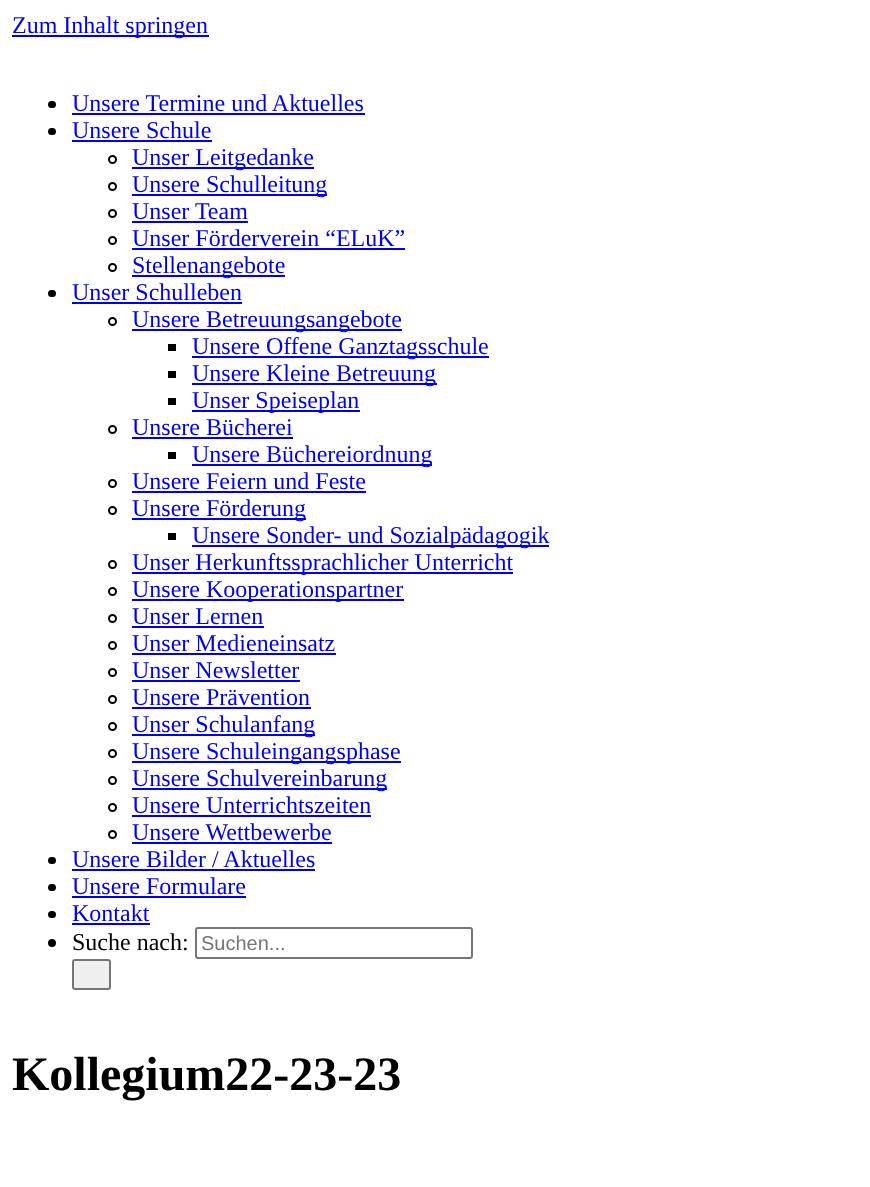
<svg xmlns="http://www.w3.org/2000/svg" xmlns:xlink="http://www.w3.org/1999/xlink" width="870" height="1187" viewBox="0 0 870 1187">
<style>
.cls-1{font:24px Liberation Serif;fill:#0000ee}
.cls-2{font:24px Liberation Serif;fill:#000000}
.cls-3{font:20px Liberation Sans;fill:#757575}
.cls-4{font:bold 48px Liberation Serif;fill:#000000}
</style>
<rect width="100%" height="100%" fill="#ffffff"/>
<rect fill="#0000ee" x="12" y="35" width="197" height="2"/>
<rect fill="#000000" x="48" y="101" width="8" height="7" rx="3.5"/>
<rect fill="#0000ee" x="72" y="113" width="293" height="2"/>
<rect fill="#000000" x="48" y="128" width="8" height="7" rx="3.5"/>
<rect fill="#0000ee" x="72" y="140" width="140" height="2"/>
<circle fill="none" stroke="#000000" stroke-width="2" cx="112.5" cy="159.5" r="3.5"/>
<rect fill="#0000ee" x="132" y="167" width="182" height="2"/>
<circle fill="none" stroke="#000000" stroke-width="2" cx="112.5" cy="186.5" r="3.5"/>
<rect fill="#0000ee" x="132" y="194" width="195" height="2"/>
<circle fill="none" stroke="#000000" stroke-width="2" cx="112.5" cy="213.5" r="3.5"/>
<rect fill="#0000ee" x="132" y="221" width="116" height="2"/>
<circle fill="none" stroke="#000000" stroke-width="2" cx="112.5" cy="240.5" r="3.5"/>
<rect fill="#0000ee" x="132" y="248" width="273" height="2"/>
<circle fill="none" stroke="#000000" stroke-width="2" cx="112.5" cy="267.5" r="3.5"/>
<rect fill="#0000ee" x="132" y="275" width="153" height="2"/>
<rect fill="#000000" x="48" y="290" width="8" height="7" rx="3.5"/>
<rect fill="#0000ee" x="72" y="302" width="170" height="2"/>
<circle fill="none" stroke="#000000" stroke-width="2" cx="112.5" cy="321.5" r="3.5"/>
<rect fill="#0000ee" x="132" y="329" width="270" height="2"/>
<rect fill="#000000" x="168" y="344" width="8" height="7"/>
<rect fill="#0000ee" x="192" y="356" width="297" height="2"/>
<rect fill="#000000" x="168" y="371" width="8" height="7"/>
<rect fill="#0000ee" x="192" y="383" width="245" height="2"/>
<rect fill="#000000" x="168" y="398" width="8" height="7"/>
<rect fill="#0000ee" x="192" y="410" width="168" height="2"/>
<circle fill="none" stroke="#000000" stroke-width="2" cx="112.5" cy="429.5" r="3.5"/>
<rect fill="#0000ee" x="132" y="437" width="161" height="2"/>
<rect fill="#000000" x="168" y="452" width="8" height="7"/>
<rect fill="#0000ee" x="192" y="464" width="240" height="2"/>
<circle fill="none" stroke="#000000" stroke-width="2" cx="112.5" cy="483.5" r="3.5"/>
<rect fill="#0000ee" x="132" y="491" width="234" height="2"/>
<circle fill="none" stroke="#000000" stroke-width="2" cx="112.5" cy="510.5" r="3.5"/>
<rect fill="#0000ee" x="132" y="518" width="174" height="2"/>
<rect fill="#000000" x="168" y="533" width="8" height="7"/>
<rect fill="#0000ee" x="192" y="545" width="357" height="2"/>
<circle fill="none" stroke="#000000" stroke-width="2" cx="112.5" cy="564.5" r="3.5"/>
<rect fill="#0000ee" x="132" y="572" width="381" height="2"/>
<circle fill="none" stroke="#000000" stroke-width="2" cx="112.5" cy="591.5" r="3.5"/>
<rect fill="#0000ee" x="132" y="599" width="272" height="2"/>
<circle fill="none" stroke="#000000" stroke-width="2" cx="112.5" cy="618.5" r="3.5"/>
<rect fill="#0000ee" x="132" y="626" width="132" height="2"/>
<circle fill="none" stroke="#000000" stroke-width="2" cx="112.5" cy="645.5" r="3.5"/>
<rect fill="#0000ee" x="132" y="653" width="204" height="2"/>
<circle fill="none" stroke="#000000" stroke-width="2" cx="112.5" cy="672.5" r="3.5"/>
<rect fill="#0000ee" x="132" y="680" width="168" height="2"/>
<circle fill="none" stroke="#000000" stroke-width="2" cx="112.5" cy="699.5" r="3.5"/>
<rect fill="#0000ee" x="132" y="707" width="179" height="2"/>
<circle fill="none" stroke="#000000" stroke-width="2" cx="112.5" cy="726.5" r="3.5"/>
<rect fill="#0000ee" x="132" y="734" width="183" height="2"/>
<circle fill="none" stroke="#000000" stroke-width="2" cx="112.5" cy="753.5" r="3.5"/>
<rect fill="#0000ee" x="132" y="761" width="269" height="2"/>
<circle fill="none" stroke="#000000" stroke-width="2" cx="112.5" cy="780.5" r="3.5"/>
<rect fill="#0000ee" x="132" y="788" width="255" height="2"/>
<circle fill="none" stroke="#000000" stroke-width="2" cx="112.5" cy="807.5" r="3.5"/>
<rect fill="#0000ee" x="132" y="815" width="239" height="2"/>
<circle fill="none" stroke="#000000" stroke-width="2" cx="112.5" cy="834.5" r="3.5"/>
<rect fill="#0000ee" x="132" y="842" width="200" height="2"/>
<rect fill="#000000" x="48" y="857" width="8" height="7" rx="3.5"/>
<rect fill="#0000ee" x="72" y="869" width="243" height="2"/>
<rect fill="#000000" x="48" y="884" width="8" height="7" rx="3.5"/>
<rect fill="#0000ee" x="72" y="896" width="174" height="2"/>
<rect fill="#000000" x="48" y="911" width="8" height="7" rx="3.5"/>
<rect fill="#0000ee" x="72" y="923" width="78" height="2"/>
<circle fill="#000000" cx="52" cy="943" r="4"/>
<rect fill="none" stroke="#767676" stroke-width="2" x="196" y="928" width="276" height="30" rx="2"/>
<rect fill="#efefef" stroke="#767676" stroke-width="2" x="73" y="960" width="37" height="29" rx="2"/>
<text class="cls-1" x="12" y="33">Zum Inhalt springen</text>
<text class="cls-1"><tspan x="72" y="111">Unsere Termine und Aktuelles</tspan><tspan x="72" y="138">Unsere Schule</tspan></text>
<text class="cls-1"><tspan x="132" y="165">Unser Leitgedanke</tspan><tspan x="132" y="192">Unsere Schulleitung</tspan><tspan x="132" y="219">Unser Team</tspan><tspan x="132" y="246">Unser Förderverein “ELuK”</tspan><tspan x="132" y="273">Stellenangebote</tspan></text>
<text class="cls-1" x="72" y="300">Unser Schulleben</text>
<text class="cls-1" x="132" y="327">Unsere Betreuungsangebote</text>
<text class="cls-1"><tspan x="192" y="354">Unsere Offene Ganztagsschule</tspan><tspan x="192" y="381">Unsere Kleine Betreuung</tspan><tspan x="192" y="408">Unser Speiseplan</tspan></text>
<text class="cls-1" x="132" y="435">Unsere Bücherei</text>
<text class="cls-1" x="192" y="462">Unsere Büchereiordnung</text>
<text class="cls-1"><tspan x="132" y="489">Unsere Feiern und Feste</tspan><tspan x="132" y="516">Unsere Förderung</tspan></text>
<text class="cls-1" x="192" y="543">Unsere Sonder- und Sozialpädagogik</text>
<text class="cls-1"><tspan x="132" y="570">Unser Herkunftssprachlicher Unterricht</tspan><tspan x="132" y="597">Unsere Kooperationspartner</tspan><tspan x="132" y="624">Unser Lernen</tspan><tspan x="132" y="651">Unser Medieneinsatz</tspan><tspan x="132" y="678">Unser Newsletter</tspan><tspan x="132" y="705">Unsere Prävention</tspan><tspan x="132" y="732">Unser Schulanfang</tspan><tspan x="132" y="759">Unsere Schuleingangsphase</tspan><tspan x="132" y="786">Unsere Schulvereinbarung</tspan><tspan x="132" y="813">Unsere Unterrichtszeiten</tspan><tspan x="132" y="840">Unsere Wettbewerbe</tspan></text>
<text class="cls-1"><tspan x="72" y="867">Unsere Bilder / Aktuelles</tspan><tspan x="72" y="894">Unsere Formulare</tspan><tspan x="72" y="921">Kontakt</tspan></text>
<text class="cls-2" x="72" y="950">Suche nach:</text>
<text class="cls-3" x="201" y="950">Suchen...</text>
<text class="cls-4" x="12" y="1090">Kollegium22-23-23</text>
</svg>
